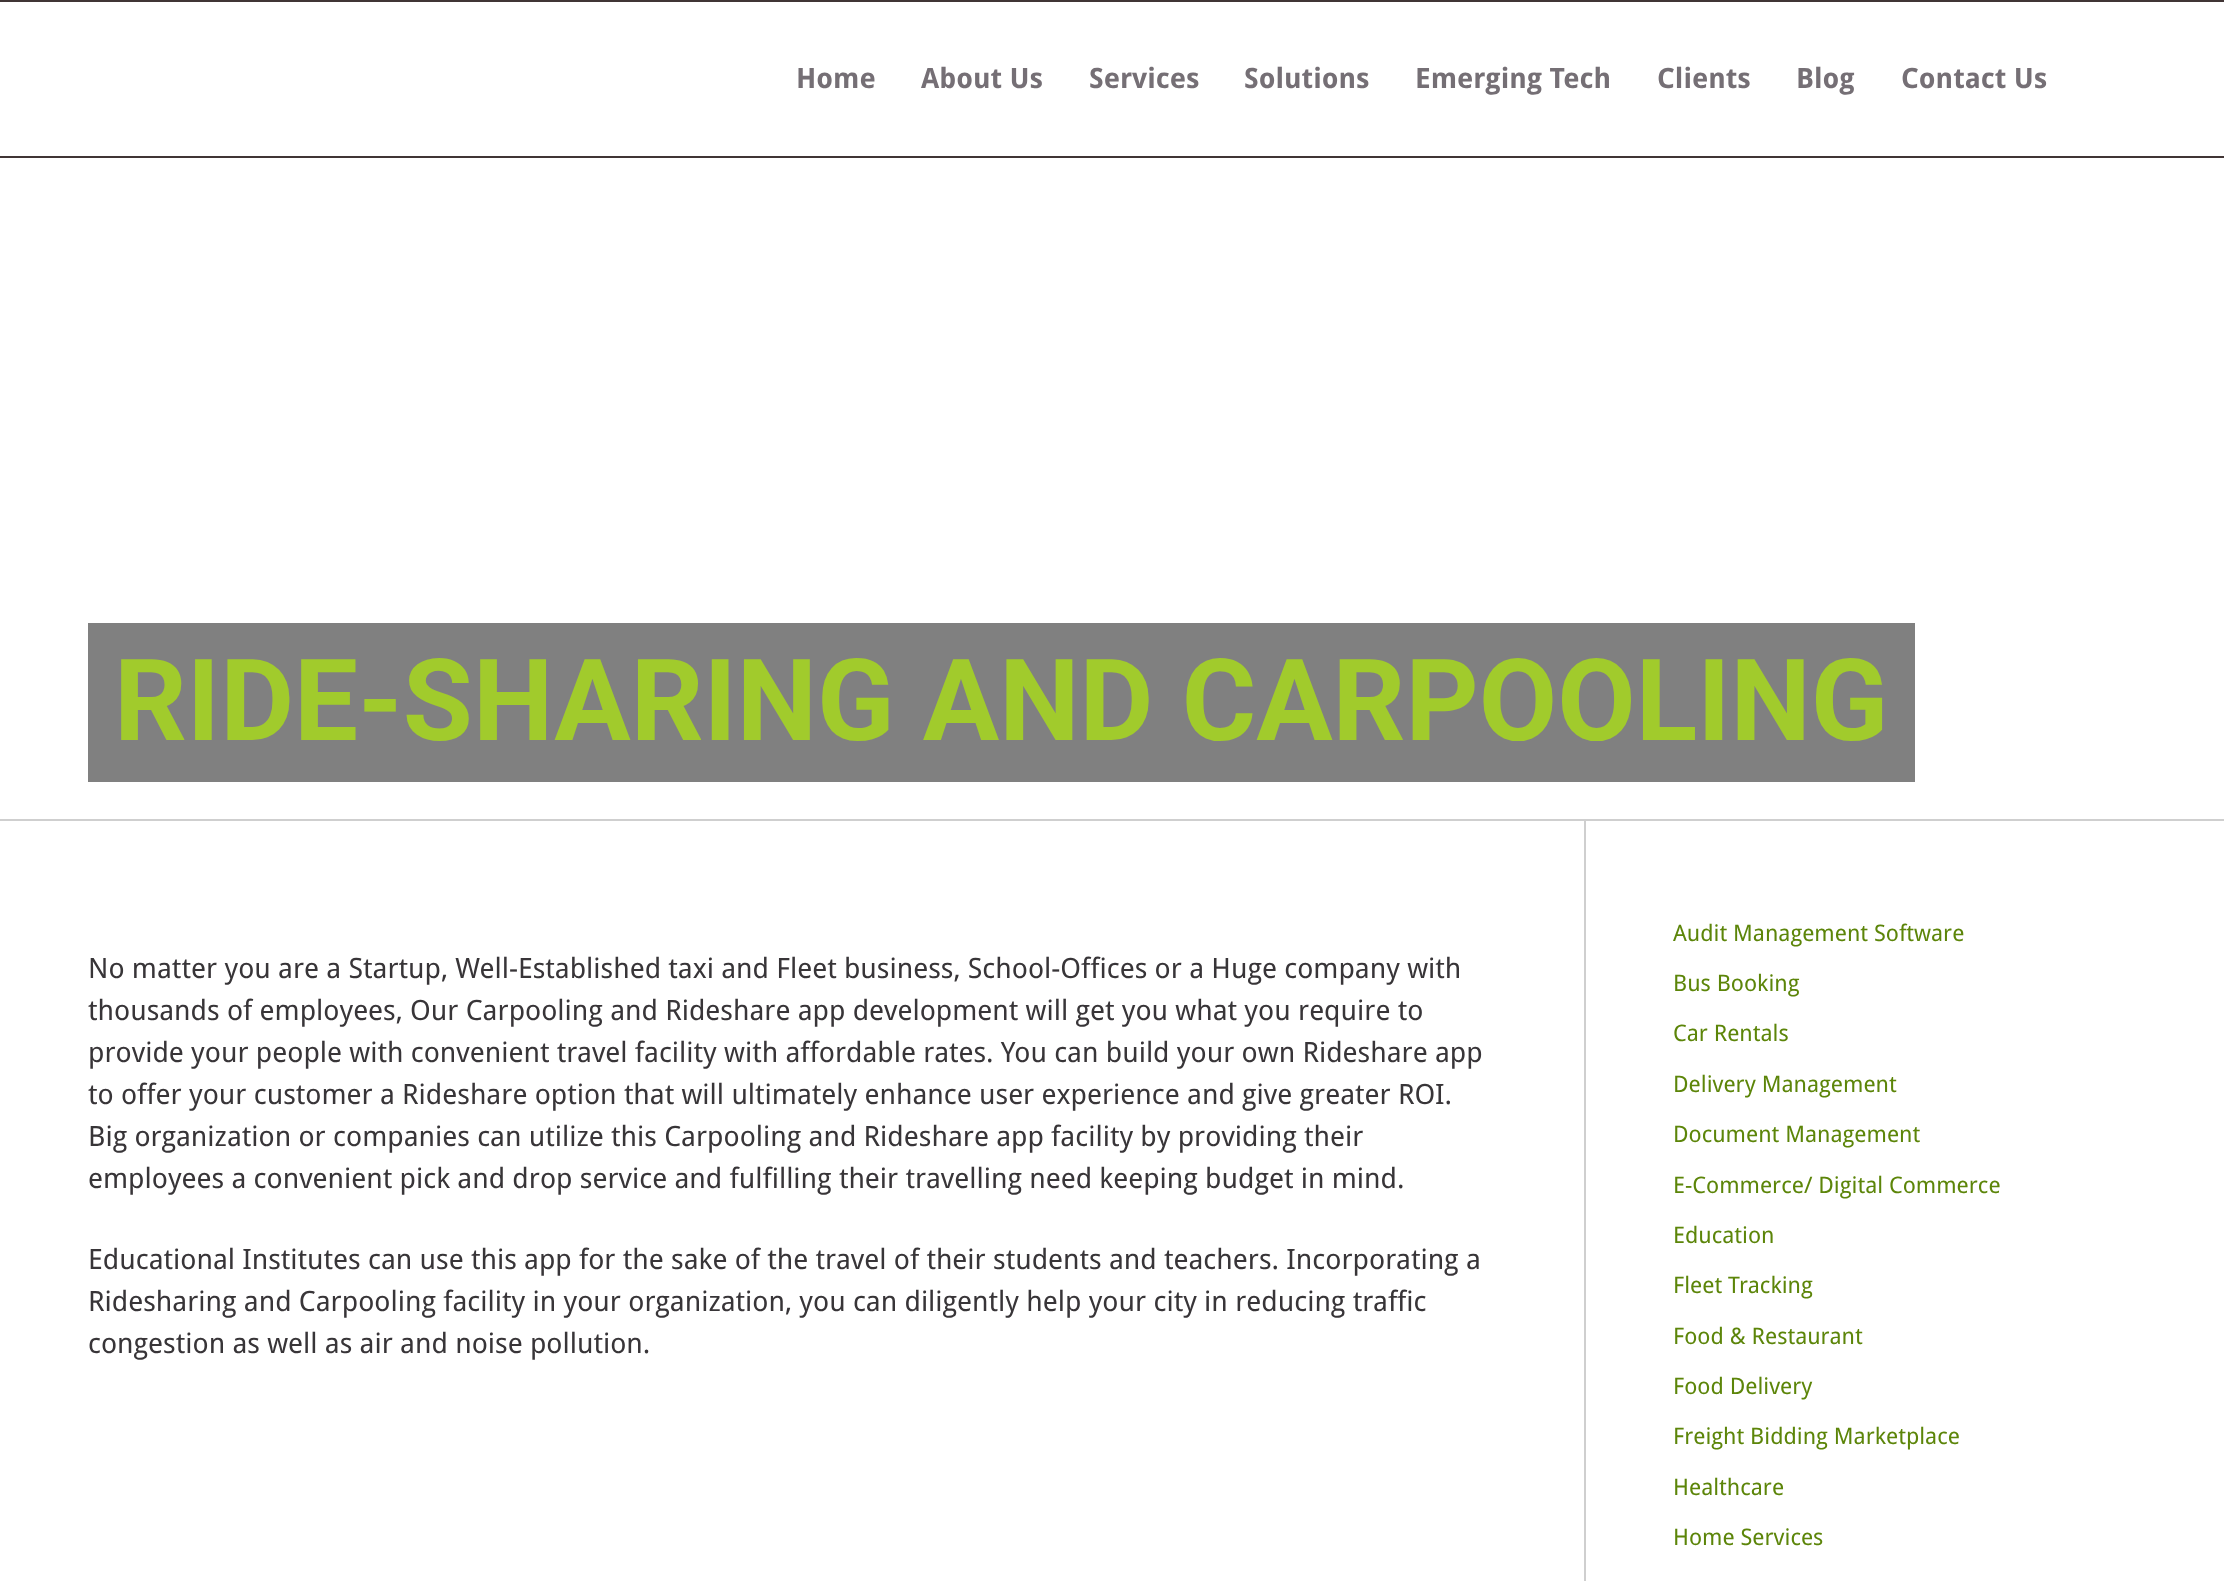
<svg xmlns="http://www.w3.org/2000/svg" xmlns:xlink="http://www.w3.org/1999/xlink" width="2224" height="1581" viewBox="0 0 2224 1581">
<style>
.cls-1{font:bold 28px Droid Sans;fill:#756f75}
.cls-2{font:bold 113.75px Roboto;fill:#a1cb2c}
.cls-3{font:28px Droid Sans;fill:#383538}
.cls-4{font:22.75px Droid Sans;fill:#5c8509}
</style>
<rect width="100%" height="100%" fill="#ffffff"/>
<rect fill="#403535" x="0" y="0" width="2224" height="2"/>
<rect fill="#403535" x="0" y="156" width="2224" height="2"/>
<rect fill="#808080" x="88" y="623" width="1827" height="159"/>
<rect fill="#cfcfcf" x="0" y="819" width="2224" height="2"/>
<rect fill="#cfcfcf" x="1584" y="821" width="2" height="760"/>
<text class="cls-1" x="796" y="88">Home</text>
<text class="cls-1" x="921" y="88">About Us</text>
<text class="cls-1" x="1089" y="88">Services</text>
<text class="cls-1" x="1244" y="88">Solutions</text>
<text class="cls-1" x="1415" y="88">Emerging Tech</text>
<text class="cls-1" x="1657" y="88">Clients</text>
<text class="cls-1" x="1796" y="88">Blog</text>
<text class="cls-1" x="1901" y="88">Contact Us</text>
<text class="cls-2" x="114" y="740">RIDE-SHARING AND CARPOOLING</text>
<text class="cls-3"><tspan x="88" y="978">No matter you are a Startup, Well-Established taxi and Fleet business, School-Offices or a Huge company with</tspan><tspan x="88" y="1020">thousands of employees, Our Carpooling and Rideshare app development will get you what you require to</tspan><tspan x="88" y="1062">provide your people with convenient travel facility with affordable rates. You can build your own Rideshare app</tspan><tspan x="88" y="1104">to offer your customer a Rideshare option that will ultimately enhance user experience and give greater ROI.</tspan><tspan x="88" y="1146">Big organization or companies can utilize this Carpooling and Rideshare app facility by providing their</tspan><tspan x="88" y="1188">employees a convenient pick and drop service and fulfilling their travelling need keeping budget in mind.</tspan></text>
<text class="cls-3"><tspan x="88" y="1269">Educational Institutes can use this app for the sake of the travel of their students and teachers. Incorporating a</tspan><tspan x="88" y="1311">Ridesharing and Carpooling facility in your organization, you can diligently help your city in reducing traffic</tspan><tspan x="88" y="1353">congestion as well as air and noise pollution.</tspan></text>
<text class="cls-4" x="1673" y="941">Audit Management Software</text>
<text class="cls-4" x="1673" y="991">Bus Booking</text>
<text class="cls-4" x="1673" y="1041">Car Rentals</text>
<text class="cls-4" x="1673" y="1092">Delivery Management</text>
<text class="cls-4" x="1673" y="1142">Document Management</text>
<text class="cls-4" x="1673" y="1193">E-Commerce/ Digital Commerce</text>
<text class="cls-4" x="1673" y="1243">Education</text>
<text class="cls-4" x="1673" y="1293">Fleet Tracking</text>
<text class="cls-4" x="1673" y="1344">Food &amp; Restaurant</text>
<text class="cls-4" x="1673" y="1394">Food Delivery</text>
<text class="cls-4" x="1673" y="1444">Freight Bidding Marketplace</text>
<text class="cls-4" x="1673" y="1495">Healthcare</text>
<text class="cls-4" x="1673" y="1545">Home Services</text>
</svg>
